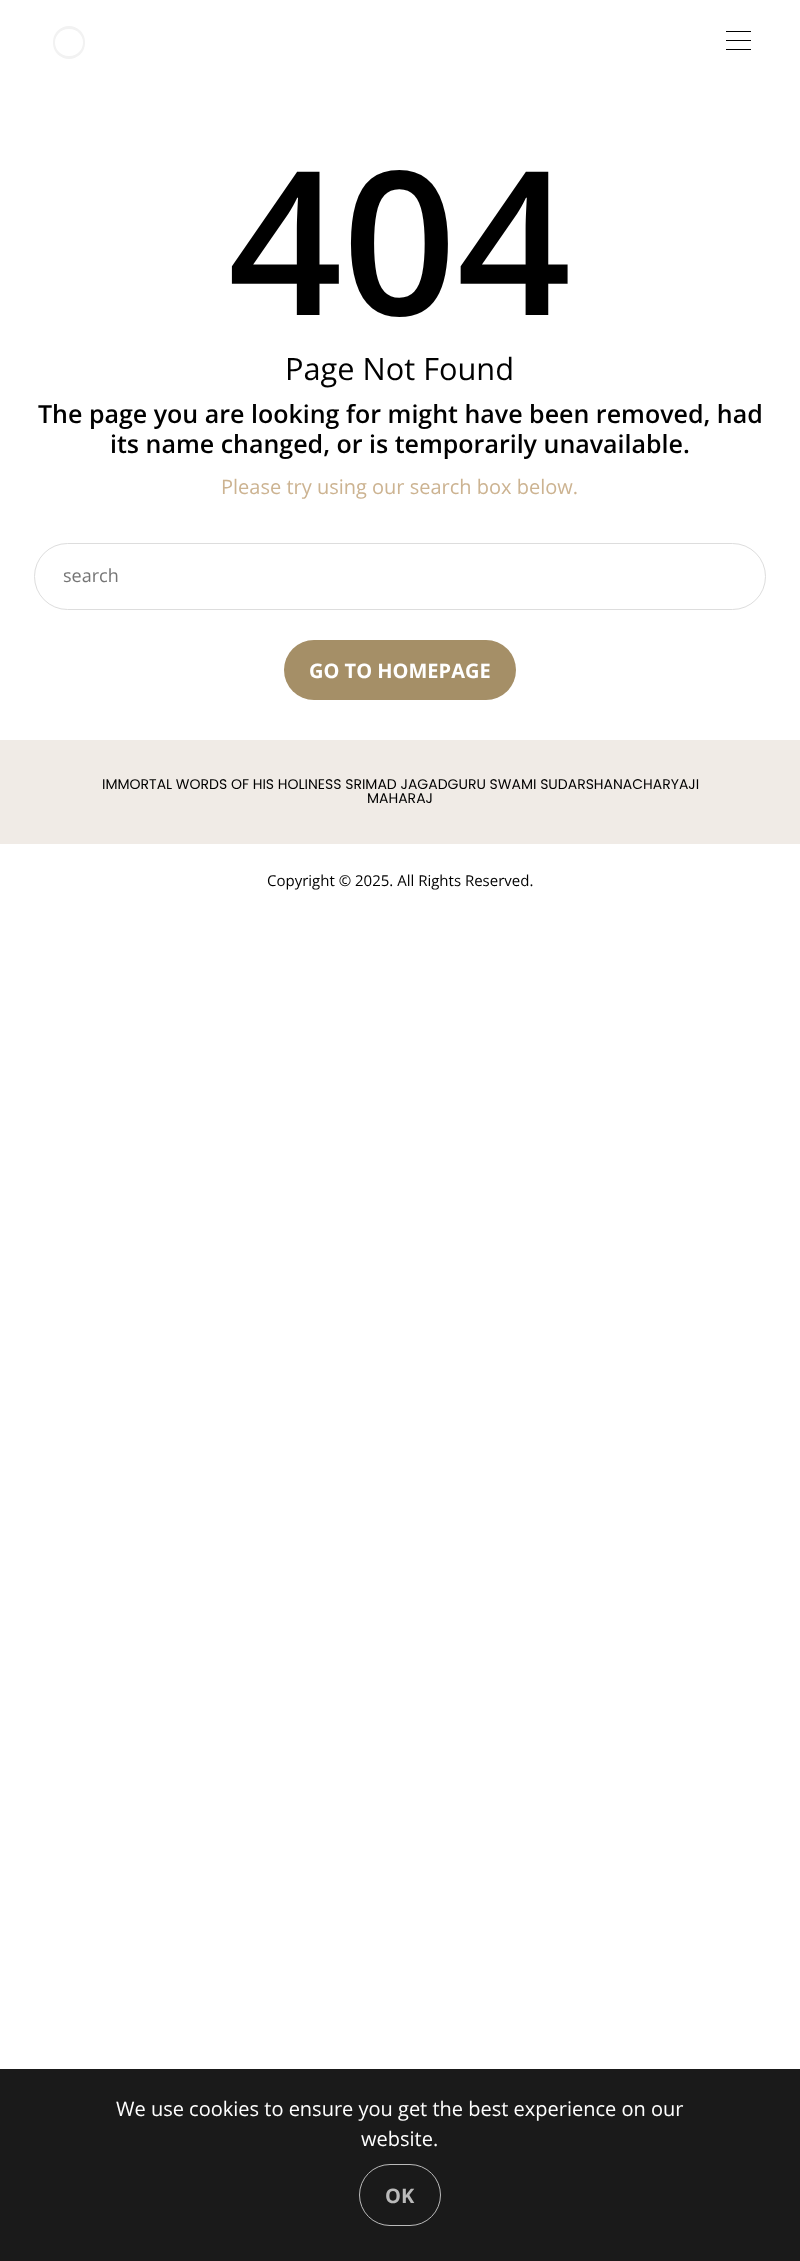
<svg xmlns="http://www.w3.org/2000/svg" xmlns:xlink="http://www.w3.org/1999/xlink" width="800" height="2261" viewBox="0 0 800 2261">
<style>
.cls-1{font:600 200px Open Sans;fill:#000000}
.cls-2{font:30.75px Open Sans;fill:#000000}
.cls-3{font:600 25px Open Sans;fill:#000000}
.cls-4{font:20px Open Sans;fill:#ccb391}
.cls-5{font:18px Open Sans;fill:#757575}
.cls-6{font:bold 20px Open Sans;fill:#ffffff}
.cls-7{font:14px Poppins;fill:#000000}
.cls-8{font:15px Open Sans;fill:#000000}
.cls-9{font:20px Open Sans;fill:#ffffff}
.cls-10{font:bold 20px Open Sans;fill:#bababa}
</style>
<rect width="100%" height="100%" fill="#ffffff"/>
<rect fill="#f2f2f2" x="53" y="26" width="32" height="33" rx="16"/>
<rect fill="#ffffff" x="55" y="29" width="28" height="27" rx="13.5"/>
<rect fill="#000000" x="726" y="40" width="25" height="1"/>
<rect fill="#000000" x="726" y="31" width="25" height="1"/>
<rect fill="#000000" x="726" y="49" width="25" height="1"/>
<rect fill="none" stroke="#dddddd" x="34.5" y="543.5" width="731" height="66" rx="33"/>
<rect fill="#a58f67" x="284" y="640" width="232" height="60" rx="30"/>
<rect fill="#f0ebe6" x="0" y="740" width="800" height="104"/>
<rect fill="#1a1a1a" x="0" y="2069" width="800" height="192"/>
<rect fill="none" stroke="#bababa" x="359.5" y="2164.5" width="81" height="61" rx="30.5"/>
<text class="cls-1" x="228" y="315">404</text>
<text class="cls-2" x="285" y="380">Page Not Found</text>
<text class="cls-3" x="38" y="423">The page you are looking for might have been removed, had</text>
<text class="cls-3" x="110" y="453">its name changed, or is temporarily unavailable.</text>
<text class="cls-4" x="221" y="494">Please try using our search box below.</text>
<text class="cls-5" x="63" y="582">search</text>
<text class="cls-6" x="309" y="678">GO TO HOMEPAGE</text>
<text class="cls-7" x="102" y="789">IMMORTAL WORDS OF HIS HOLINESS SRIMAD JAGADGURU SWAMI SUDARSHANACHARYAJI</text>
<text class="cls-7" x="367" y="803">MAHARAJ</text>
<text class="cls-8" x="267" y="886">Copyright © 2025. All Rights Reserved.</text>
<text class="cls-9" x="116" y="2116">We use cookies to ensure you get the best experience on our</text>
<text class="cls-9" x="361" y="2146">website.</text>
<text class="cls-10" x="385" y="2203">OK</text>
</svg>
